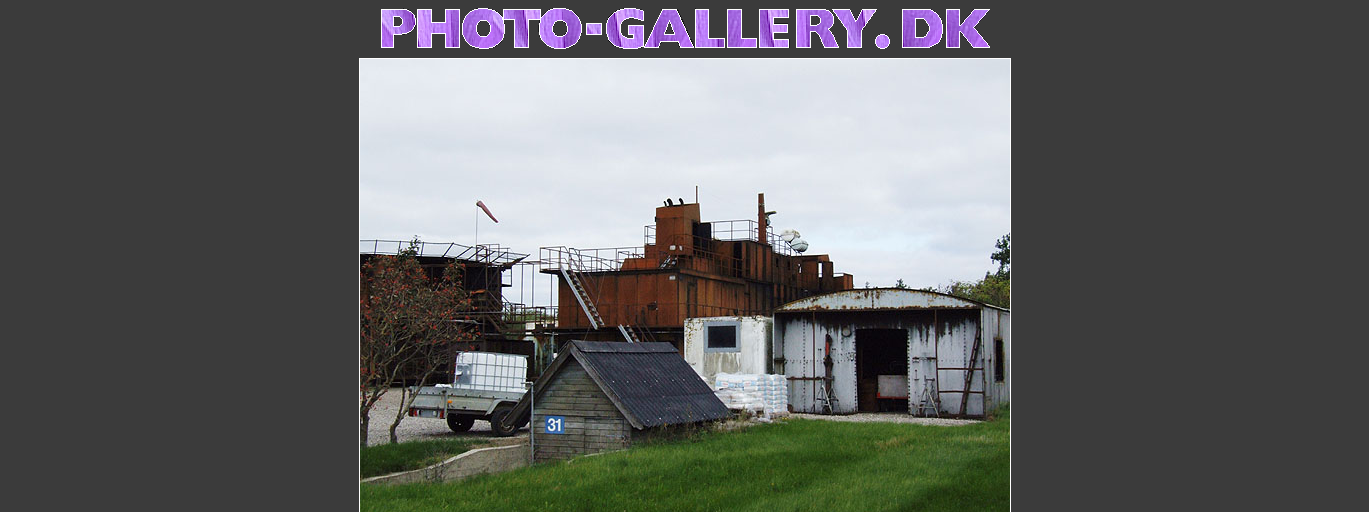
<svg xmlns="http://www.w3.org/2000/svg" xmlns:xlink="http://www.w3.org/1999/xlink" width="1369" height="512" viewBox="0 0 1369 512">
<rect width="100%" height="100%" fill="#3b3b3b"/>
<image xlink:href="image0.png" x="381" y="8" width="609" height="41"/>
<rect fill="none" stroke="#ffffff" x="359.5" y="58.5" width="651" height="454"/>
<image xlink:href="image1.png" x="360" y="59" width="650" height="453"/>
</svg>
